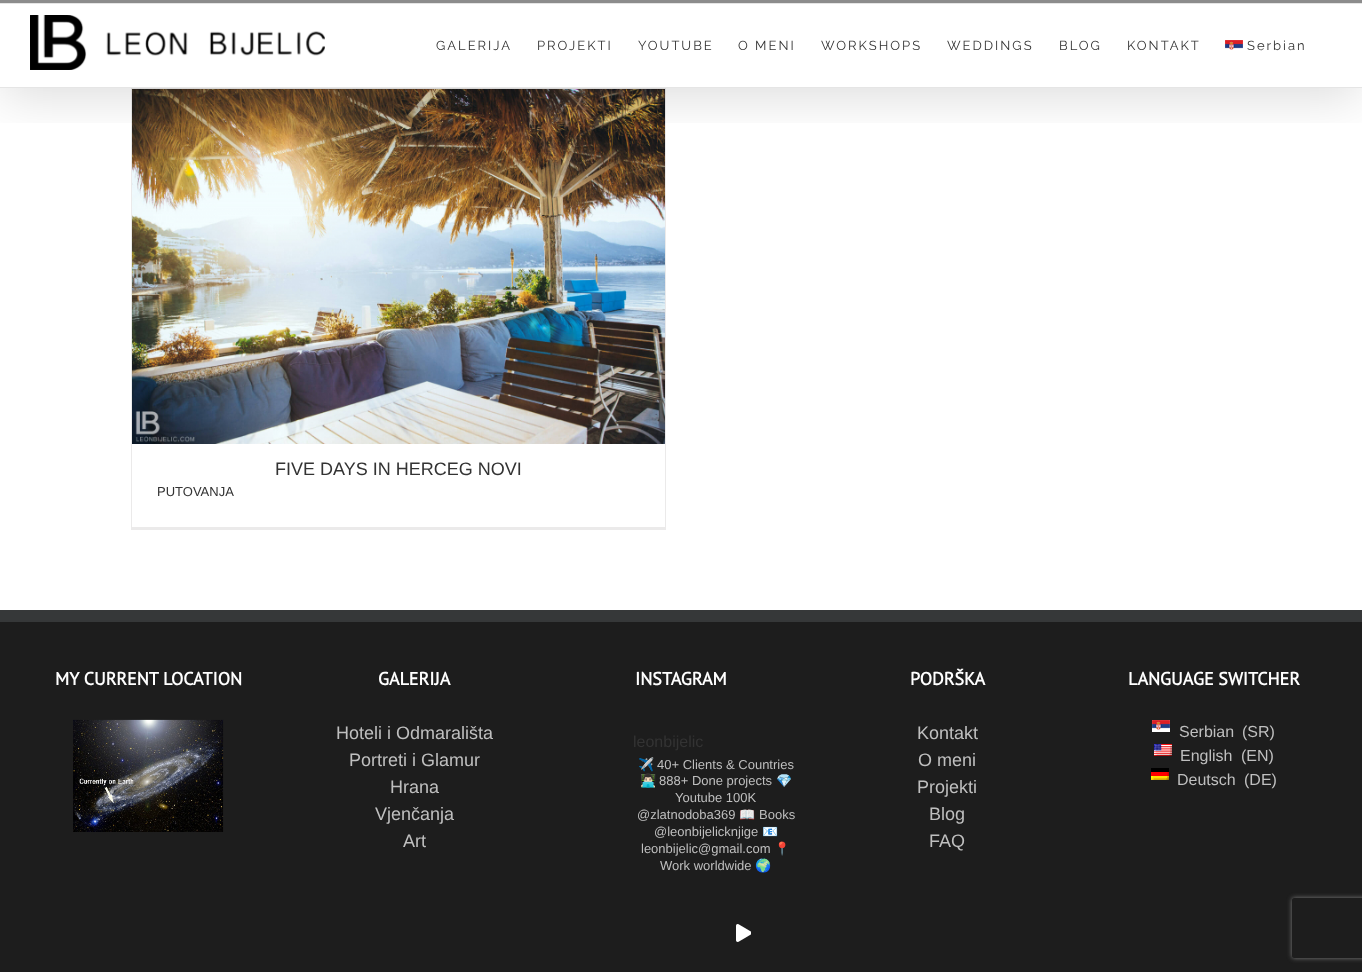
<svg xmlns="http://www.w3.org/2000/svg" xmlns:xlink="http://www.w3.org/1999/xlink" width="1362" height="972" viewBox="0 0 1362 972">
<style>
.cls-1{font:13px Raleway;letter-spacing:2px;fill:#333333}
.cls-2{font:18px Liberation Sans;fill:#333333}
.cls-3{font:13px Liberation Sans;fill:#333333}
.cls-4{font:bold 18px PT Sans;fill:#ffffff}
.cls-5{font:18px Liberation Sans;fill:#bfbfbf}
.cls-6{font:16px Liberation Sans;fill:#333333}
.cls-7{font:13px Noto Color Emoji;fill:#bfbfbf}
.cls-8{font:13px Liberation Sans;fill:#bfbfbf}
.cls-9{font:16px Liberation Sans;fill:#bfbfbf}
</style>
<defs>
<clipPath id="clip1"><rect x="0" y="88" width="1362" height="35"/></clipPath>
<clipPath id="clip2"><path d="M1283 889H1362V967H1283ZM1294 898H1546C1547 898 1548 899 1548 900V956C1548 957 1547 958 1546 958H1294C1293 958 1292 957 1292 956V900C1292 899 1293 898 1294 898Z" clip-rule="evenodd"/></clipPath>
</defs>
<rect width="100%" height="100%" fill="#ffffff"/>
<rect fill="#ebeaea" x="131" y="88" width="535" height="1"/>
<rect fill="#ebeaea" x="665" y="88" width="1" height="442"/>
<rect fill="#ebeaea" x="131" y="527" width="535" height="3"/>
<rect fill="#ebeaea" x="131" y="88" width="1" height="442"/>
<image xlink:href="image2.png" x="132" y="89" width="533" height="355"/>
<g clip-path="url(#clip1)">
<rect fill="#000000" fill-opacity="0.14" filter="blur(25px)" x="2" y="12" width="1358" height="84"/>
</g>
<rect fill="#8c8c8c" x="0" y="0" width="1362" height="3"/>
<rect fill="#e5e5e5" x="0" y="3" width="1362" height="1"/>
<rect fill="#e5e5e5" x="0" y="87" width="1362" height="1"/>
<image xlink:href="image0.png" x="30" y="15" width="295" height="55"/>
<image xlink:href="image1.png" x="1225" y="40" width="18" height="10"/>
<rect fill="#1d1d1d" x="0" y="622" width="1362" height="350"/>
<rect fill="#363839" x="0" y="610" width="1362" height="12"/>
<image xlink:href="image3.png" x="73" y="719" width="151" height="113"/>
<image xlink:href="image4.png" x="736" y="924" width="15" height="18"/>
<image xlink:href="image5.png" x="1152" y="720" width="18" height="12"/>
<image xlink:href="image6.png" x="1154" y="744" width="18" height="12"/>
<image xlink:href="image7.png" x="1151" y="768" width="18" height="12"/>
<g clip-path="url(#clip2)">
<rect fill="#808080" filter="blur(2.5px)" x="1292" y="898" width="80" height="60" rx="2"/>
</g>
<text class="cls-1" x="436" y="50">GALERIJA</text>
<text class="cls-1" x="537" y="50">PROJEKTI</text>
<text class="cls-1" x="638" y="50">YOUTUBE</text>
<text class="cls-1" x="738" y="50">O MENI</text>
<text class="cls-1" x="821" y="50">WORKSHOPS</text>
<text class="cls-1" x="947" y="50">WEDDINGS</text>
<text class="cls-1" x="1059" y="50">BLOG</text>
<text class="cls-1" x="1127" y="50">KONTAKT</text>
<text class="cls-1" x="1247" y="50">Serbian</text>
<text class="cls-2" x="275" y="475">FIVE DAYS IN HERCEG NOVI</text>
<text class="cls-3" x="157" y="496">PUTOVANJA</text>
<text class="cls-4" x="55" y="685">MY CURRENT LOCATION</text>
<text class="cls-4" x="378" y="685">GALERIJA</text>
<text class="cls-5" x="336" y="739">Hoteli i Odmarališta</text>
<text class="cls-5" x="349" y="766">Portreti i Glamur</text>
<text class="cls-5" x="390" y="793">Hrana</text>
<text class="cls-5" x="375" y="820">Vjenčanja</text>
<text class="cls-5" x="403" y="847">Art</text>
<text class="cls-4" x="635" y="685">INSTAGRAM</text>
<text class="cls-6" x="633" y="747">leonbijelic</text>
<text class="cls-7" x="638" y="769">✈️</text>
<text class="cls-8" x="657" y="769">40+ Clients &amp; Countries</text>
<text class="cls-7" x="640" y="785">👨🏻‍💻</text>
<text class="cls-8" x="659" y="785">888+ Done projects</text>
<text class="cls-7" x="776" y="785">💎</text>
<text class="cls-8" x="675" y="802">Youtube 100K</text>
<text class="cls-8" x="637" y="819">@zlatnodoba369</text>
<text class="cls-7" x="739" y="819">📖</text>
<text class="cls-8" x="759" y="819">Books</text>
<text class="cls-8" x="654" y="836">@leonbijelicknjige</text>
<text class="cls-7" x="762" y="836">📧</text>
<text class="cls-8" x="641" y="853">leonbijelic@gmail.com</text>
<text class="cls-7" x="774" y="853">📍</text>
<text class="cls-8" x="660" y="870">Work worldwide</text>
<text class="cls-7" x="755" y="870">🌍</text>
<text class="cls-4" x="910" y="685">PODRŠKA</text>
<text class="cls-5" x="917" y="739">Kontakt</text>
<text class="cls-5" x="918" y="766">O meni</text>
<text class="cls-5" x="917" y="793">Projekti</text>
<text class="cls-5"><tspan x="929" y="820">Blog</tspan><tspan x="929" y="847">FAQ</tspan></text>
<text class="cls-4" x="1128" y="685">LANGUAGE SWITCHER</text>
<text class="cls-9" x="1179" y="737">Serbian</text>
<text class="cls-9" x="1242" y="737">(SR)</text>
<text class="cls-9" x="1180" y="761">English</text>
<text class="cls-9" x="1241" y="761">(EN)</text>
<text class="cls-9" x="1177" y="785">Deutsch</text>
<text class="cls-9" x="1244" y="785">(DE)</text>
</svg>
